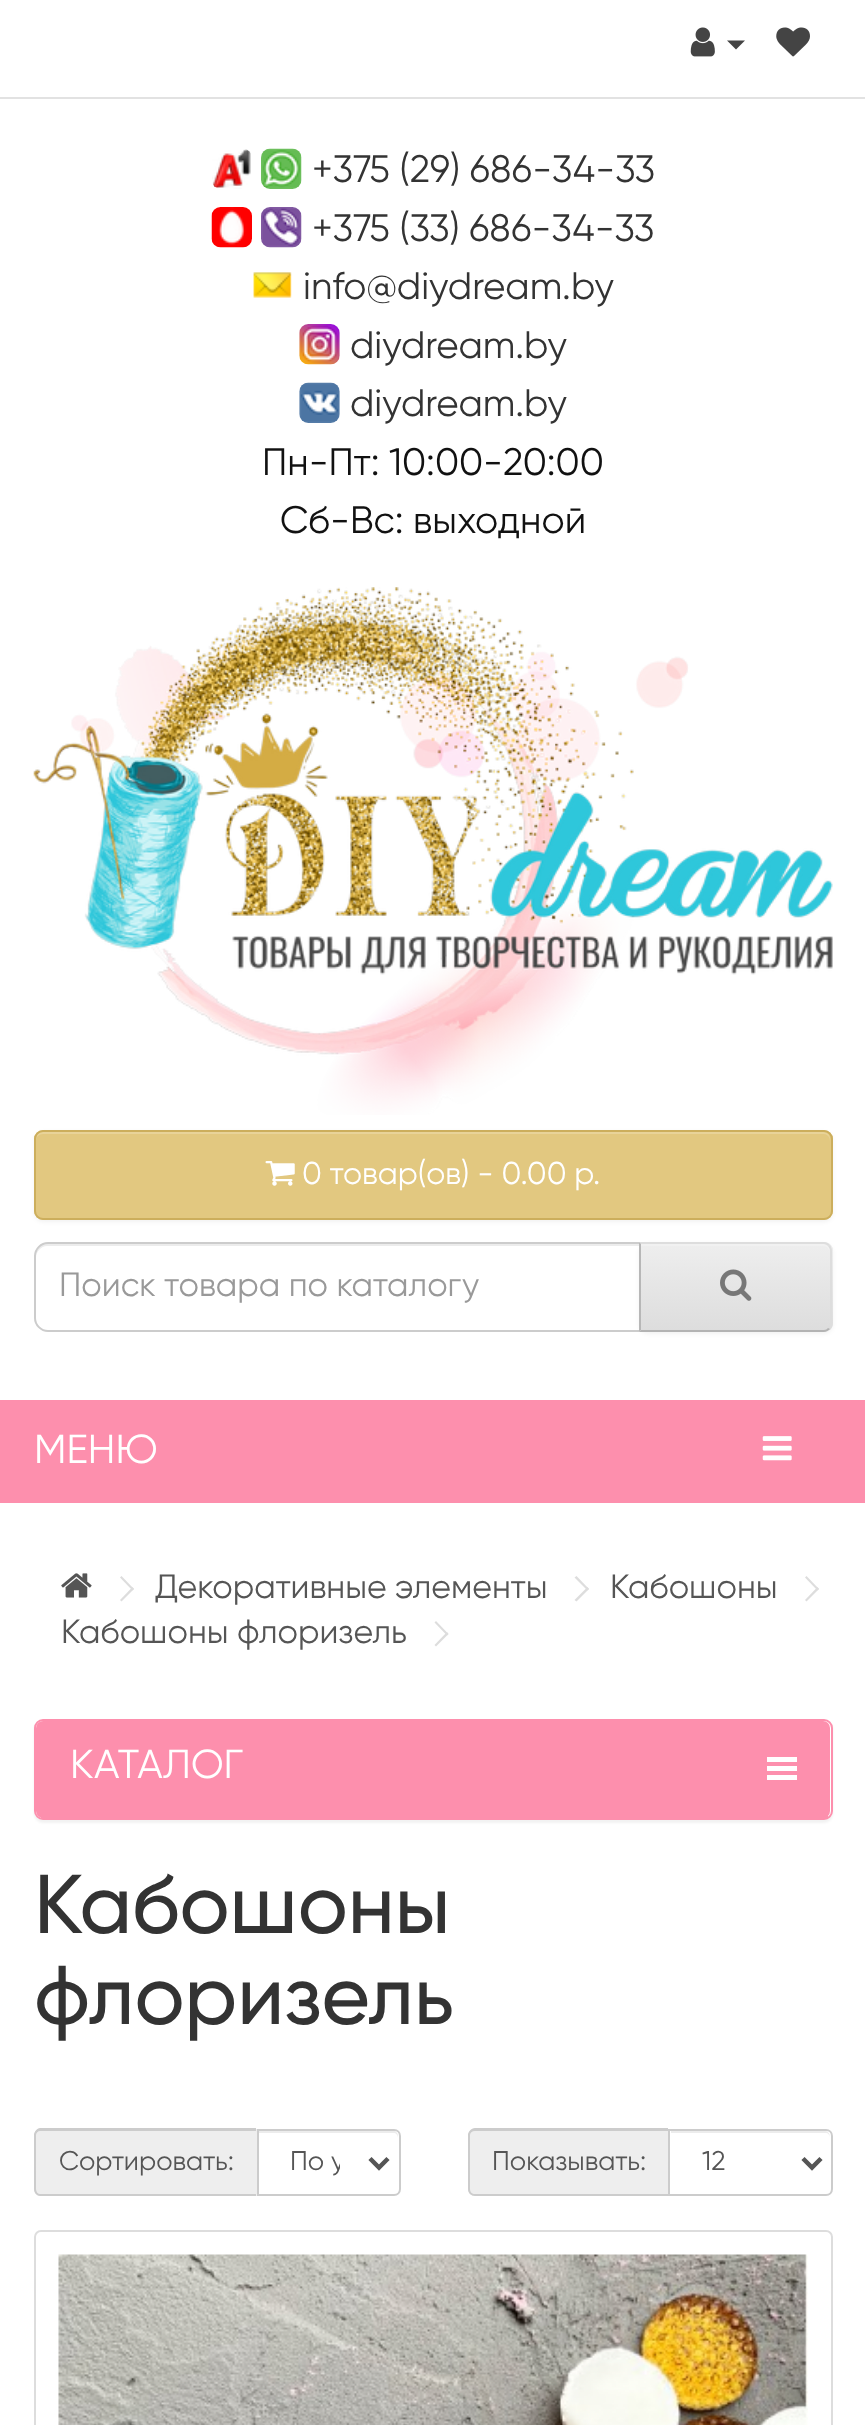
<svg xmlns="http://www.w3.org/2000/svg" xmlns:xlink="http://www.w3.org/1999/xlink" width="865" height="2425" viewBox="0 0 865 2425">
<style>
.cls-1{font:38.25px Gilroy;fill:#333333}
.cls-2{font:38.25px Gilroy;fill:#111111}
.cls-3{font:31.5px Gilroy;fill:#ffffff}
.cls-4{font:33.75px Gilroy;fill:#999999}
.cls-5{font:40.5px Gilroy;fill:#ffffff}
.cls-6{font:33.75px Gilroy;fill:#555555}
.cls-7{font:500 83.25px Gilroy;fill:#333333}
.cls-8{font:27px Gilroy;fill:#555555}
</style>
<defs>
<clipPath id="clip1"><path d="M639 1242H824C829 1242 833 1246 833 1251V1323C833 1328 829 1332 824 1332H639Z"/></clipPath>
<linearGradient id="g1" gradientUnits="userSpaceOnUse" x1="736" y1="1244" x2="736" y2="1330"><stop offset="0" stop-color="#eeeeee"/><stop offset="1" stop-color="#dddddd"/></linearGradient>
<clipPath id="clip2"><rect x="290" y="2147" width="50" height="31"/></clipPath>
</defs>
<rect width="100%" height="100%" fill="#ffffff"/>
<rect fill="#e2e2e2" x="0" y="97" width="865" height="2"/>
<image xlink:href="image0.png" x="690" y="27" width="25" height="30"/>
<path fill="#444444" d="M727 40.5H745L736 49.5Z"/>
<image xlink:href="image1.png" x="776" y="27" width="34" height="30"/>
<image xlink:href="image2.png" x="212" y="149" width="39" height="40"/>
<image xlink:href="image3.png" x="261" y="148" width="41" height="41"/>
<image xlink:href="image4.png" x="211" y="207" width="41" height="41"/>
<image xlink:href="image5.png" x="261" y="207" width="41" height="41"/>
<image xlink:href="image6.png" x="253" y="272" width="39" height="26"/>
<image xlink:href="image7.png" x="299" y="324" width="41" height="41"/>
<image xlink:href="image8.png" x="299" y="382" width="41" height="41"/>
<image xlink:href="image9.png" x="33" y="587" width="800" height="528"/>
<rect fill="#000000" fill-opacity="0.05" filter="blur(2px)" x="34" y="1132" width="799" height="90" rx="9"/>
<rect fill="#e2c880" x="34" y="1130" width="799" height="90" rx="9"/>
<path fill="#e8d399" d="M43 1134H824C827 1134 830 1137 830 1141V1139C830 1135 827 1132 823 1132H43C39 1132 36 1135 36 1139V1141C36 1137 39 1134 43 1134Z"/>
<rect fill="none" stroke="#ccae5c" stroke-width="2" x="35" y="1131" width="797" height="88" rx="8"/>
<image xlink:href="image10.png" x="265" y="1161" width="30" height="25"/>
<path fill="#ececec" d="M47 1246H639V1244H47C41 1244 36 1249 36 1255V1258C36 1252 41 1246 47 1246Z"/>
<path fill="none" stroke="#cccccc" stroke-width="2" d="M48 1243H640V1331H48C41 1331 35 1325 35 1318V1256C35 1249 41 1243 48 1243Z"/>
<rect fill="#000000" fill-opacity="0.05" filter="blur(2px)" x="639" y="1244" width="194" height="90" rx="9"/>
<path fill="#e7e7e7" d="M639 1242H824C829 1242 833 1246 833 1251V1323C833 1328 829 1332 824 1332H639Z"/>
<g clip-path="url(#clip1)">
<rect fill="url(#g1)" x="641" y="1244" width="192" height="86"/>
</g>
<path fill="#f1f1f1" d="M641 1246H824C827 1246 830 1250 830 1253V1251C830 1247 827 1244 823 1244H641Z"/>
<path fill="#dddddd" d="M639 1242L641 1244H824C826 1244 827 1245 828 1246L830 1245C828 1243 826 1242 824 1242Z"/>
<path fill="#dddddd" d="M830 1245C831 1246 832 1249 832 1251V1323C832 1325 831 1328 830 1329L828 1328C829 1327 830 1325 830 1323V1251C830 1249 829 1247 828 1246Z"/>
<path fill="#b3b3b3" d="M824 1332C826 1332 828 1331 830 1329L828 1328C827 1329 826 1330 824 1330H641L639 1332Z"/>
<path fill="#b7b7b7" d="M639 1242V1332L641 1330V1244Z"/>
<image xlink:href="image11.png" x="720" y="1269" width="32" height="32"/>
<rect fill="#fd8fad" x="0" y="1400" width="865" height="103"/>
<image xlink:href="image12.png" x="762" y="1436" width="30" height="25"/>
<image xlink:href="image13.png" x="61" y="1573" width="31" height="25"/>
<path fill="#dddddd" d="M120 1577.5L121.5 1576L134 1589L132.5 1590.5Z"/>
<path fill="#dddddd" d="M120 1600L132.5 1587L134 1589L121.5 1601.5Z"/>
<path fill="#dddddd" d="M574.5 1577.5L576.5 1576L589 1589L587.5 1590.5Z"/>
<path fill="#dddddd" d="M574.5 1600L587.5 1587L589 1589L576.5 1601.5Z"/>
<path fill="#dddddd" d="M805 1577.5L806.5 1576L819 1589L817.5 1590.5Z"/>
<path fill="#dddddd" d="M805 1600L817.5 1587L819 1589L806.5 1601.5Z"/>
<path fill="#dddddd" d="M434.5 1622.5L436 1621L448.5 1634L447 1635.5Z"/>
<path fill="#dddddd" d="M434.5 1645L447 1632L448.5 1634L436 1646.5Z"/>
<rect fill="#000000" fill-opacity="0.05" filter="blur(1px)" x="34" y="1721" width="799" height="102" rx="9"/>
<rect fill="#ffffff" stroke="#fd8fad" stroke-width="2" x="35" y="1720" width="797" height="99" rx="8"/>
<rect fill="#fd8fad" x="36" y="1721" width="794" height="97" rx="7"/>
<rect fill="#fd8fad" x="41" y="1816" width="787" height="2"/>
<rect fill="#ffffff" x="767" y="1775" width="30" height="5"/>
<rect fill="#ffffff" x="767" y="1766" width="30" height="5"/>
<rect fill="#ffffff" x="767" y="1757" width="30" height="5"/>
<path fill="#eeeeee" d="M41 2129H257V2196H41C37 2196 34 2193 34 2189V2136C34 2132 37 2129 41 2129Z"/>
<path fill="#cccccc" fill-rule="evenodd" d="M40 2128H256V2196H40C37 2196 34 2193 34 2189V2135C34 2132 37 2128 40 2128ZM40 2131H256V2194H40C38 2194 36 2192 36 2189V2135C36 2133 38 2131 40 2131Z"/>
<path fill="#ececec" d="M259 2133H394C396 2133 398 2135 398 2138V2136C398 2133 396 2131 393 2131H259Z"/>
<path fill="none" stroke="#cccccc" stroke-width="2" d="M258 2130H394C397.5 2130 400 2132.5 400 2136V2189C400 2192.5 397.5 2195 394 2195H258Z"/>
<path fill="none" stroke="#555555" stroke-width="4.5" d="M370 2158.5L379 2167.5L388 2158.5"/>
<path fill="#eeeeee" d="M475 2129H668V2196H475C471 2196 468 2193 468 2189V2136C468 2132 471 2129 475 2129Z"/>
<path fill="#cccccc" fill-rule="evenodd" d="M475 2128H668V2196H475C471 2196 468 2193 468 2189V2135C468 2132 471 2128 475 2128ZM475 2131H668V2194H475C472 2194 470 2192 470 2189V2135C470 2133 472 2131 475 2131Z"/>
<path fill="#ececec" d="M671 2131V2133H826C828 2133 830 2135 830 2138C830 2135 829 2131 825 2131Z"/>
<path fill="none" stroke="#cccccc" stroke-width="2" d="M669 2130H826C829.5 2130 832 2132.5 832 2136V2189C832 2192.5 829.5 2195 826 2195H669Z"/>
<path fill="none" stroke="#555555" stroke-width="4.5" d="M803 2158.5L812 2167.5L821 2158.5"/>
<rect fill="none" stroke="#dddddd" stroke-width="2" x="35" y="2231" width="797" height="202" rx="6"/>
<image xlink:href="image14.png" x="58" y="2254" width="750" height="171"/>
<text class="cls-1"><tspan x="312" y="182">+375 (29) 686-34-33</tspan><tspan x="312" y="241">+375 (33) 686-34-33</tspan></text>
<text class="cls-1" x="303" y="299">info@diydream.by</text>
<text class="cls-1"><tspan x="350" y="358">diydream.by</tspan><tspan x="350" y="416">diydream.by</tspan></text>
<text class="cls-2" x="262" y="475">Пн-Пт: 10:00-20:00</text>
<text class="cls-2" x="280" y="533">Сб-Вс: выходной</text>
<text class="cls-3" x="302" y="1184">0 товар(ов) - 0.00 р.</text>
<text class="cls-4" x="59" y="1296">Поиск товара по каталогу</text>
<text class="cls-5" x="34" y="1463">МЕНЮ</text>
<text class="cls-6" x="155" y="1598">Декоративные элементы</text>
<text class="cls-6" x="610" y="1598">Кабошоны</text>
<text class="cls-6" x="61" y="1643">Кабошоны флоризель</text>
<text class="cls-5" x="70" y="1778">КАТАЛОГ</text>
<text class="cls-7"><tspan x="34" y="1933">Кабошоны</tspan><tspan x="34" y="2024">флоризель</tspan></text>
<text class="cls-8" x="59" y="2170">Сортировать:</text>
<g clip-path="url(#clip2)">
<text class="cls-8" x="290" y="2170">По у</text>
</g>
<text class="cls-8" x="492" y="2170">Показывать:</text>
<text class="cls-8" x="702" y="2170">12</text>
</svg>
